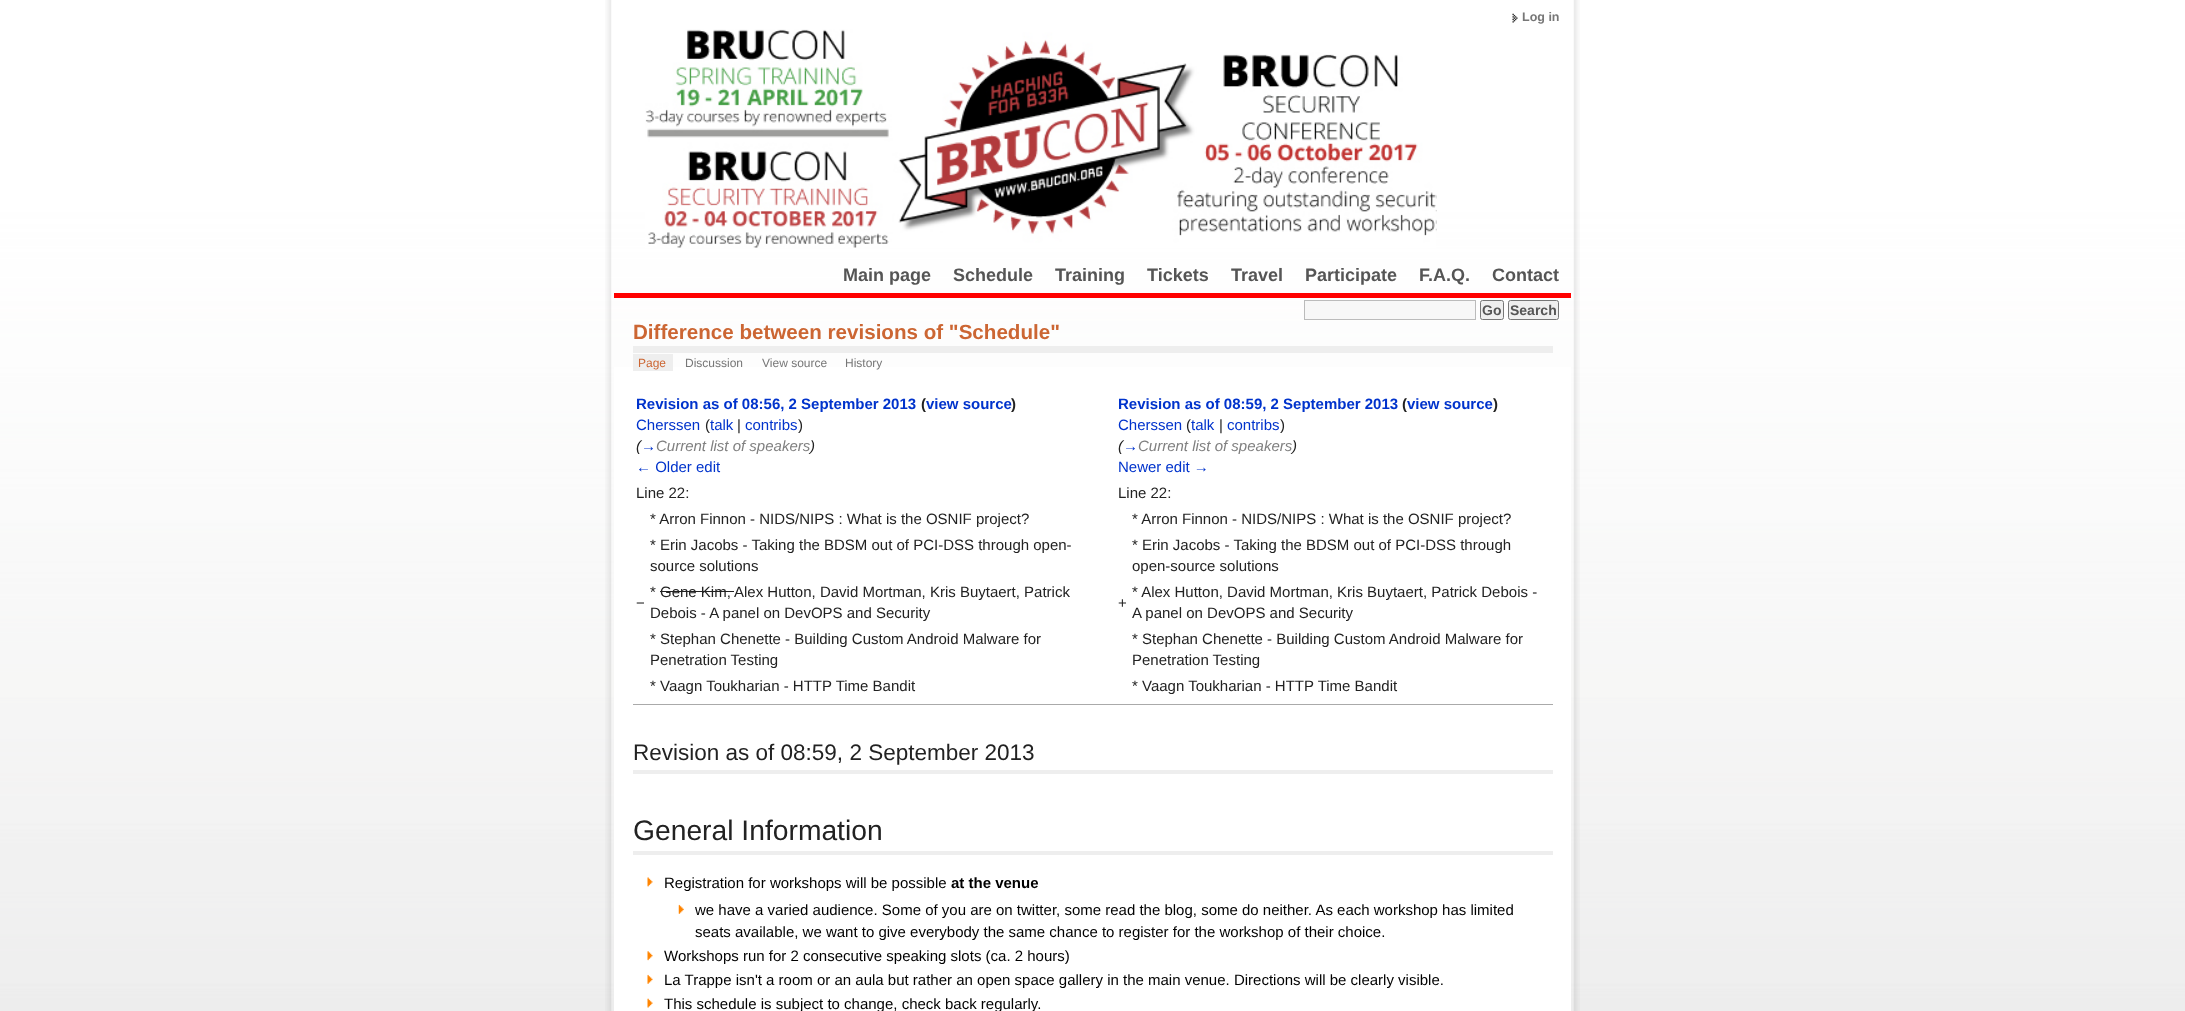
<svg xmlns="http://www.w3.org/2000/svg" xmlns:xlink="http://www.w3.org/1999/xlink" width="2185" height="1011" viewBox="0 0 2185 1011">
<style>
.cls-1{font:bold 12.5px Liberation Sans;fill:#777777}
.cls-2{font:bold 14px Liberation Sans;fill:#555555}
.cls-3{font:bold 18px Liberation Sans;fill:#555555}
.cls-4{font:bold 20.6px Liberation Sans;fill:#cc6633}
.cls-5{font:12px Liberation Sans;fill:#cc6633}
.cls-6{font:12px Liberation Sans;fill:#777777}
.cls-7{font:bold 15px Liberation Sans;fill:#0033cc}
.cls-8{font:bold 15px Liberation Sans;fill:#222222}
.cls-9{font:15px Liberation Sans;fill:#0033cc}
.cls-10{font:15px Liberation Sans;fill:#222222}
.cls-11{font:italic 15px Liberation Sans;fill:#222222}
.cls-12{font:italic 15px Liberation Sans;fill:#0033cc}
.cls-13{font:italic 15px Liberation Sans;fill:#808080}
.cls-14{font:22.5px Liberation Sans;fill:#222222}
.cls-15{font:28.25px Liberation Sans;fill:#222222}
.cls-16{font:15px Liberation Sans;fill:#000000}
.cls-17{font:bold 15px Liberation Sans;fill:#000000}
</style>
<rect width="100%" height="100%" fill="#ffffff"/>
<image xlink:href="image0.png" x="0" y="0" width="2185" height="1011"/>
<image xlink:href="image1.png" x="605" y="0" width="7" height="1011"/>
<image xlink:href="image2.png" x="1573" y="0" width="7" height="1011"/>
<rect fill="#ffffff" x="614" y="367" width="957" height="644"/>
<image xlink:href="image3.png" x="1512" y="13" width="6" height="10"/>
<image xlink:href="image4.png" x="645" y="29" width="792" height="219"/>
<rect fill="#f7f7f7" stroke="#bbbbbb" x="1304.5" y="300.5" width="171" height="19"/>
<rect fill="#efefef" stroke="#767676" x="1480.5" y="300.5" width="23" height="19" rx="2"/>
<rect fill="#efefef" stroke="#767676" x="1508.5" y="300.5" width="50" height="19" rx="2"/>
<rect fill="#ff0000" x="614" y="293" width="957" height="5"/>
<rect fill="#eeeeee" x="633" y="346" width="920" height="7"/>
<rect fill="#eeeeee" x="633" y="354" width="40" height="17"/>
<rect fill="#222222" x="660" y="591" width="74" height="1"/>
<rect fill="#aaaaaa" x="633" y="704" width="920" height="1"/>
<rect fill="#eeeeee" x="633" y="770" width="920" height="4"/>
<rect fill="#eeeeee" x="633" y="851" width="920" height="4"/>
<image xlink:href="image5.png" x="647" y="877" width="6" height="10"/>
<image xlink:href="image6.png" x="678" y="904" width="6" height="10"/>
<image xlink:href="image7.png" x="647" y="951" width="6" height="10"/>
<image xlink:href="image8.png" x="647" y="974" width="6" height="10"/>
<image xlink:href="image9.png" x="647" y="998" width="6" height="10"/>
<text class="cls-1" x="1522" y="21">Log in</text>
<text class="cls-2" x="1482" y="315">Go</text>
<text class="cls-2" x="1510" y="315">Search</text>
<text class="cls-3" x="843" y="281">Main page</text>
<text class="cls-3" x="953" y="281">Schedule</text>
<text class="cls-3" x="1055" y="281">Training</text>
<text class="cls-3" x="1147" y="281">Tickets</text>
<text class="cls-3" x="1231" y="281">Travel</text>
<text class="cls-3" x="1305" y="281">Participate</text>
<text class="cls-3" x="1419" y="281">F.A.Q.</text>
<text class="cls-3" x="1492" y="281">Contact</text>
<text class="cls-4" x="633" y="339">Difference between revisions of "Schedule"</text>
<text class="cls-5" x="638" y="367">Page</text>
<text class="cls-6" x="685" y="367">Discussion</text>
<text class="cls-6" x="762" y="367">View source</text>
<text class="cls-6" x="845" y="367">History</text>
<text class="cls-7" x="636" y="409">Revision as of 08:56, 2 September 2013</text>
<text class="cls-8" x="921" y="409">(</text>
<text class="cls-7" x="926" y="409">view source</text>
<text class="cls-8" x="1011" y="409">)</text>
<text class="cls-9" x="636" y="430">Cherssen</text>
<text class="cls-10" x="705" y="430">(</text>
<text class="cls-9" x="710" y="430">talk</text>
<text class="cls-10" x="737" y="430">|</text>
<text class="cls-9" x="745" y="430">contribs</text>
<text class="cls-10" x="798" y="430">)</text>
<text class="cls-11" x="636" y="451">(</text>
<text class="cls-12" x="641" y="451">→</text>
<text class="cls-13" x="656" y="451">Current list of speakers</text>
<text class="cls-11" x="810" y="451">)</text>
<text class="cls-9" x="636" y="472">← Older edit</text>
<text class="cls-7" x="1118" y="409">Revision as of 08:59, 2 September 2013</text>
<text class="cls-8" x="1402" y="409">(</text>
<text class="cls-7" x="1407" y="409">view source</text>
<text class="cls-8" x="1493" y="409">)</text>
<text class="cls-9" x="1118" y="430">Cherssen</text>
<text class="cls-10" x="1186" y="430">(</text>
<text class="cls-9" x="1191" y="430">talk</text>
<text class="cls-10" x="1219" y="430">|</text>
<text class="cls-9" x="1227" y="430">contribs</text>
<text class="cls-10" x="1280" y="430">)</text>
<text class="cls-11" x="1118" y="451">(</text>
<text class="cls-12" x="1123" y="451">→</text>
<text class="cls-13" x="1138" y="451">Current list of speakers</text>
<text class="cls-11" x="1292" y="451">)</text>
<text class="cls-9" x="1118" y="472">Newer edit →</text>
<text class="cls-10" x="636" y="498">Line 22:</text>
<text class="cls-10" x="1118" y="498">Line 22:</text>
<text class="cls-10" x="650" y="524">* Arron Finnon - NIDS/NIPS : What is the OSNIF project?</text>
<text class="cls-10" x="1132" y="524">* Arron Finnon - NIDS/NIPS : What is the OSNIF project?</text>
<text class="cls-10"><tspan x="650" y="550">* Erin Jacobs - Taking the BDSM out of PCI-DSS through open-</tspan><tspan x="650" y="571">source solutions</tspan></text>
<text class="cls-10"><tspan x="1132" y="550">* Erin Jacobs - Taking the BDSM out of PCI-DSS through</tspan><tspan x="1132" y="571">open-source solutions</tspan></text>
<text class="cls-10" x="636" y="608">−</text>
<text class="cls-10" x="650" y="597">*</text>
<text class="cls-10" x="660" y="597">Gene Kim,</text>
<text class="cls-10" x="734" y="597">Alex Hutton, David Mortman, Kris Buytaert, Patrick</text>
<text class="cls-10" x="650" y="618">Debois - A panel on DevOPS and Security</text>
<text class="cls-10" x="1118" y="608">+</text>
<text class="cls-10"><tspan x="1132" y="597">* Alex Hutton, David Mortman, Kris Buytaert, Patrick Debois -</tspan><tspan x="1132" y="618">A panel on DevOPS and Security</tspan></text>
<text class="cls-10"><tspan x="650" y="644">* Stephan Chenette - Building Custom Android Malware for</tspan><tspan x="650" y="665">Penetration Testing</tspan></text>
<text class="cls-10"><tspan x="1132" y="644">* Stephan Chenette - Building Custom Android Malware for</tspan><tspan x="1132" y="665">Penetration Testing</tspan></text>
<text class="cls-10" x="650" y="691">* Vaagn Toukharian - HTTP Time Bandit</text>
<text class="cls-10" x="1132" y="691">* Vaagn Toukharian - HTTP Time Bandit</text>
<text class="cls-14" x="633" y="760">Revision as of 08:59, 2 September 2013</text>
<text class="cls-15" x="633" y="840">General Information</text>
<text class="cls-16" x="664" y="888">Registration for workshops will be possible</text>
<text class="cls-17" x="951" y="888">at the venue</text>
<text class="cls-16"><tspan x="695" y="915">we have a varied audience. Some of you are on twitter, some read the blog, some do neither. As each workshop has limited</tspan><tspan x="695" y="937">seats available, we want to give everybody the same chance to register for the workshop of their choice.</tspan></text>
<text class="cls-16"><tspan x="664" y="961">Workshops run for 2 consecutive speaking slots (ca. 2 hours)</tspan><tspan x="664" y="985">La Trappe isn't a room or an aula but rather an open space gallery in the main venue. Directions will be clearly visible.</tspan><tspan x="664" y="1009">This schedule is subject to change, check back regularly.</tspan></text>
</svg>
